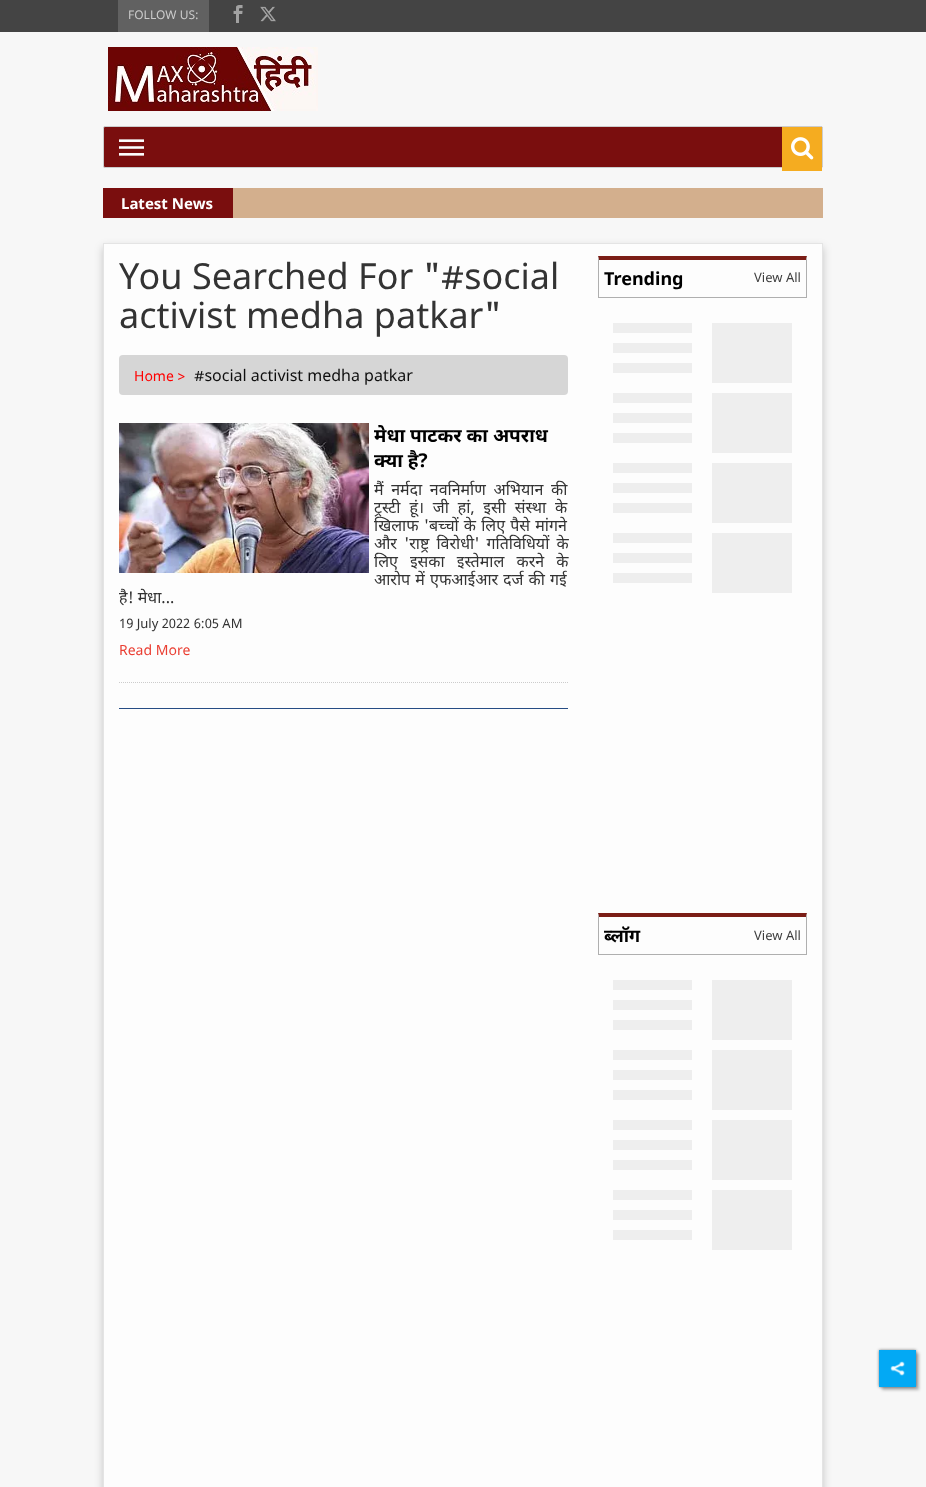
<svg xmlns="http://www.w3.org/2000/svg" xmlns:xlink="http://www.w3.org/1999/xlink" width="926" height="1487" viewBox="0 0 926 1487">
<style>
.cls-1{font:12px Noto Sans;fill:#cccccc}
.cls-2{font:bold 15px Noto Sans;fill:#ffffff}
.cls-3{font:36px Noto Sans;fill:#333333}
.cls-4{font:14px Noto Sans;fill:#ff0000}
.cls-5{font:16px Noto Sans;fill:#0f0f0f}
.cls-6{font:bold 19px Noto Sans;fill:#000000}
.cls-7{font:16px Noto Sans;fill:#333333}
.cls-8{font:13px Noto Sans;fill:#333333}
.cls-9{font:14px Noto Sans;fill:#ea3f33}
.cls-10{font:bold 18px Noto Sans;fill:#000000}
.cls-11{font:13px Noto Sans;fill:#3d3d3d}
</style>
<defs>
<linearGradient id="g1" gradientUnits="userSpaceOnUse" x1="281" y1="375" x2="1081" y2="375"><stop offset="0.08" stop-color="#eeeeee"/><stop offset="0.18" stop-color="#dddddd"/><stop offset="0.33" stop-color="#eeeeee"/></linearGradient>
<linearGradient id="g2" gradientUnits="userSpaceOnUse" x1="281" y1="395" x2="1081" y2="395"><stop offset="0.08" stop-color="#eeeeee"/><stop offset="0.18" stop-color="#dddddd"/><stop offset="0.33" stop-color="#eeeeee"/></linearGradient>
<linearGradient id="g3" gradientUnits="userSpaceOnUse" x1="281" y1="415" x2="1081" y2="415"><stop offset="0.08" stop-color="#eeeeee"/><stop offset="0.18" stop-color="#dddddd"/><stop offset="0.33" stop-color="#eeeeee"/></linearGradient>
<linearGradient id="g4" gradientUnits="userSpaceOnUse" x1="281" y1="445" x2="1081" y2="445"><stop offset="0.08" stop-color="#eeeeee"/><stop offset="0.18" stop-color="#dddddd"/><stop offset="0.33" stop-color="#eeeeee"/></linearGradient>
<linearGradient id="g5" gradientUnits="userSpaceOnUse" x1="281" y1="465" x2="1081" y2="465"><stop offset="0.08" stop-color="#eeeeee"/><stop offset="0.18" stop-color="#dddddd"/><stop offset="0.33" stop-color="#eeeeee"/></linearGradient>
<linearGradient id="g6" gradientUnits="userSpaceOnUse" x1="281" y1="485" x2="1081" y2="485"><stop offset="0.08" stop-color="#eeeeee"/><stop offset="0.18" stop-color="#dddddd"/><stop offset="0.33" stop-color="#eeeeee"/></linearGradient>
<linearGradient id="g7" gradientUnits="userSpaceOnUse" x1="281" y1="515" x2="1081" y2="515"><stop offset="0.08" stop-color="#eeeeee"/><stop offset="0.18" stop-color="#dddddd"/><stop offset="0.33" stop-color="#eeeeee"/></linearGradient>
<linearGradient id="g8" gradientUnits="userSpaceOnUse" x1="281" y1="535" x2="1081" y2="535"><stop offset="0.08" stop-color="#eeeeee"/><stop offset="0.18" stop-color="#dddddd"/><stop offset="0.33" stop-color="#eeeeee"/></linearGradient>
<linearGradient id="g9" gradientUnits="userSpaceOnUse" x1="281" y1="555" x2="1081" y2="555"><stop offset="0.08" stop-color="#eeeeee"/><stop offset="0.18" stop-color="#dddddd"/><stop offset="0.33" stop-color="#eeeeee"/></linearGradient>
<linearGradient id="g10" gradientUnits="userSpaceOnUse" x1="281" y1="585" x2="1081" y2="585"><stop offset="0.08" stop-color="#eeeeee"/><stop offset="0.18" stop-color="#dddddd"/><stop offset="0.33" stop-color="#eeeeee"/></linearGradient>
<linearGradient id="g11" gradientUnits="userSpaceOnUse" x1="281" y1="605" x2="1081" y2="605"><stop offset="0.08" stop-color="#eeeeee"/><stop offset="0.18" stop-color="#dddddd"/><stop offset="0.33" stop-color="#eeeeee"/></linearGradient>
<linearGradient id="g12" gradientUnits="userSpaceOnUse" x1="281" y1="625" x2="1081" y2="625"><stop offset="0.08" stop-color="#eeeeee"/><stop offset="0.18" stop-color="#dddddd"/><stop offset="0.33" stop-color="#eeeeee"/></linearGradient>
<linearGradient id="g13" gradientUnits="userSpaceOnUse" x1="380" y1="375" x2="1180" y2="375"><stop offset="0.08" stop-color="#eeeeee"/><stop offset="0.18" stop-color="#dddddd"/><stop offset="0.33" stop-color="#eeeeee"/></linearGradient>
<linearGradient id="g14" gradientUnits="userSpaceOnUse" x1="380" y1="445" x2="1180" y2="445"><stop offset="0.08" stop-color="#eeeeee"/><stop offset="0.18" stop-color="#dddddd"/><stop offset="0.33" stop-color="#eeeeee"/></linearGradient>
<linearGradient id="g15" gradientUnits="userSpaceOnUse" x1="380" y1="515" x2="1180" y2="515"><stop offset="0.08" stop-color="#eeeeee"/><stop offset="0.18" stop-color="#dddddd"/><stop offset="0.33" stop-color="#eeeeee"/></linearGradient>
<linearGradient id="g16" gradientUnits="userSpaceOnUse" x1="380" y1="585" x2="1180" y2="585"><stop offset="0.08" stop-color="#eeeeee"/><stop offset="0.18" stop-color="#dddddd"/><stop offset="0.33" stop-color="#eeeeee"/></linearGradient>
<linearGradient id="g17" gradientUnits="userSpaceOnUse" x1="281" y1="1032" x2="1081" y2="1032"><stop offset="0.08" stop-color="#eeeeee"/><stop offset="0.18" stop-color="#dddddd"/><stop offset="0.33" stop-color="#eeeeee"/></linearGradient>
<linearGradient id="g18" gradientUnits="userSpaceOnUse" x1="281" y1="1052" x2="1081" y2="1052"><stop offset="0.08" stop-color="#eeeeee"/><stop offset="0.18" stop-color="#dddddd"/><stop offset="0.33" stop-color="#eeeeee"/></linearGradient>
<linearGradient id="g19" gradientUnits="userSpaceOnUse" x1="281" y1="1072" x2="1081" y2="1072"><stop offset="0.08" stop-color="#eeeeee"/><stop offset="0.18" stop-color="#dddddd"/><stop offset="0.33" stop-color="#eeeeee"/></linearGradient>
<linearGradient id="g20" gradientUnits="userSpaceOnUse" x1="281" y1="1102" x2="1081" y2="1102"><stop offset="0.08" stop-color="#eeeeee"/><stop offset="0.18" stop-color="#dddddd"/><stop offset="0.33" stop-color="#eeeeee"/></linearGradient>
<linearGradient id="g21" gradientUnits="userSpaceOnUse" x1="281" y1="1122" x2="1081" y2="1122"><stop offset="0.08" stop-color="#eeeeee"/><stop offset="0.18" stop-color="#dddddd"/><stop offset="0.33" stop-color="#eeeeee"/></linearGradient>
<linearGradient id="g22" gradientUnits="userSpaceOnUse" x1="281" y1="1142" x2="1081" y2="1142"><stop offset="0.08" stop-color="#eeeeee"/><stop offset="0.18" stop-color="#dddddd"/><stop offset="0.33" stop-color="#eeeeee"/></linearGradient>
<linearGradient id="g23" gradientUnits="userSpaceOnUse" x1="281" y1="1172" x2="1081" y2="1172"><stop offset="0.08" stop-color="#eeeeee"/><stop offset="0.18" stop-color="#dddddd"/><stop offset="0.33" stop-color="#eeeeee"/></linearGradient>
<linearGradient id="g24" gradientUnits="userSpaceOnUse" x1="281" y1="1192" x2="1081" y2="1192"><stop offset="0.08" stop-color="#eeeeee"/><stop offset="0.18" stop-color="#dddddd"/><stop offset="0.33" stop-color="#eeeeee"/></linearGradient>
<linearGradient id="g25" gradientUnits="userSpaceOnUse" x1="281" y1="1212" x2="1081" y2="1212"><stop offset="0.08" stop-color="#eeeeee"/><stop offset="0.18" stop-color="#dddddd"/><stop offset="0.33" stop-color="#eeeeee"/></linearGradient>
<linearGradient id="g26" gradientUnits="userSpaceOnUse" x1="281" y1="1242" x2="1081" y2="1242"><stop offset="0.08" stop-color="#eeeeee"/><stop offset="0.18" stop-color="#dddddd"/><stop offset="0.33" stop-color="#eeeeee"/></linearGradient>
<linearGradient id="g27" gradientUnits="userSpaceOnUse" x1="281" y1="1262" x2="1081" y2="1262"><stop offset="0.08" stop-color="#eeeeee"/><stop offset="0.18" stop-color="#dddddd"/><stop offset="0.33" stop-color="#eeeeee"/></linearGradient>
<linearGradient id="g28" gradientUnits="userSpaceOnUse" x1="281" y1="1282" x2="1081" y2="1282"><stop offset="0.08" stop-color="#eeeeee"/><stop offset="0.18" stop-color="#dddddd"/><stop offset="0.33" stop-color="#eeeeee"/></linearGradient>
<linearGradient id="g29" gradientUnits="userSpaceOnUse" x1="380" y1="1032" x2="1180" y2="1032"><stop offset="0.08" stop-color="#eeeeee"/><stop offset="0.18" stop-color="#dddddd"/><stop offset="0.33" stop-color="#eeeeee"/></linearGradient>
<linearGradient id="g30" gradientUnits="userSpaceOnUse" x1="380" y1="1102" x2="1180" y2="1102"><stop offset="0.08" stop-color="#eeeeee"/><stop offset="0.18" stop-color="#dddddd"/><stop offset="0.33" stop-color="#eeeeee"/></linearGradient>
<linearGradient id="g31" gradientUnits="userSpaceOnUse" x1="380" y1="1172" x2="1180" y2="1172"><stop offset="0.08" stop-color="#eeeeee"/><stop offset="0.18" stop-color="#dddddd"/><stop offset="0.33" stop-color="#eeeeee"/></linearGradient>
<linearGradient id="g32" gradientUnits="userSpaceOnUse" x1="380" y1="1242" x2="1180" y2="1242"><stop offset="0.08" stop-color="#eeeeee"/><stop offset="0.18" stop-color="#dddddd"/><stop offset="0.33" stop-color="#eeeeee"/></linearGradient>
</defs>
<rect width="100%" height="100%" fill="#f7f7f7"/>
<rect fill="#444444" x="0" y="0" width="926" height="32"/>
<rect fill="#616161" x="118" y="0" width="91" height="32"/>
<image xlink:href="image0.png" x="233" y="5" width="10" height="18"/>
<image xlink:href="image1.png" x="260" y="6" width="16" height="16"/>
<image xlink:href="image2.png" x="108" y="47" width="210" height="64"/>
<rect fill="#7a0e0e" stroke="#cccccc" x="103.5" y="126.5" width="719" height="41" rx="1.5"/>
<image xlink:href="image3.png" x="119" y="139" width="25" height="17"/>
<rect fill="#f5ac20" x="782" y="127" width="40" height="44"/>
<image xlink:href="image4.png" x="791" y="137" width="23" height="23"/>
<rect fill="#d3af8d" x="233" y="188" width="590" height="30"/>
<rect fill="#7a0e0e" x="103" y="188" width="130" height="30"/>
<rect fill="#000000" fill-opacity="0.2" filter="blur(4px)" x="103" y="247" width="720" height="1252"/>
<rect fill="#fdfdfd" stroke="#e4e4e4" x="103.5" y="243.5" width="719" height="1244"/>
<rect fill="#d6d6d6" x="119" y="355" width="449" height="40" rx="4"/>
<path fill="none" stroke="#cccccc" stroke-dasharray="1 1" d="M119 682.5H568"/>
<image xlink:href="image5.png" x="119" y="423" width="250" height="150"/>
<rect fill="#264c84" x="119" y="708" width="449" height="1"/>
<path fill="#7b1d16" d="M598 256H807L806 260H599Z"/>
<path fill="#afafaf" d="M807 256V298L806 297V260Z"/>
<rect fill="#afafaf" x="598" y="297" width="209" height="1"/>
<path fill="#afafaf" d="M598 298V256L599 260V297Z"/>
<rect fill="url(#g1)" x="613" y="323" width="79" height="10"/>
<rect fill="url(#g2)" x="613" y="343" width="79" height="10"/>
<rect fill="url(#g3)" x="613" y="363" width="79" height="10"/>
<rect fill="url(#g4)" x="613" y="393" width="79" height="10"/>
<rect fill="url(#g5)" x="613" y="413" width="79" height="10"/>
<rect fill="url(#g6)" x="613" y="433" width="79" height="10"/>
<rect fill="url(#g7)" x="613" y="463" width="79" height="10"/>
<rect fill="url(#g8)" x="613" y="483" width="79" height="10"/>
<rect fill="url(#g9)" x="613" y="503" width="79" height="10"/>
<rect fill="url(#g10)" x="613" y="533" width="79" height="10"/>
<rect fill="url(#g11)" x="613" y="553" width="79" height="10"/>
<rect fill="url(#g12)" x="613" y="573" width="79" height="10"/>
<rect fill="url(#g13)" x="712" y="323" width="80" height="60"/>
<rect fill="url(#g14)" x="712" y="393" width="80" height="60"/>
<rect fill="url(#g15)" x="712" y="463" width="80" height="60"/>
<rect fill="url(#g16)" x="712" y="533" width="80" height="60"/>
<path fill="#7b1d16" d="M598 913H807L806 917H599Z"/>
<path fill="#afafaf" d="M807 913V955L806 954V917Z"/>
<rect fill="#afafaf" x="598" y="954" width="209" height="1"/>
<path fill="#afafaf" d="M598 955V913L599 917V954Z"/>
<rect fill="url(#g17)" x="613" y="980" width="79" height="10"/>
<rect fill="url(#g18)" x="613" y="1000" width="79" height="10"/>
<rect fill="url(#g19)" x="613" y="1020" width="79" height="10"/>
<rect fill="url(#g20)" x="613" y="1050" width="79" height="10"/>
<rect fill="url(#g21)" x="613" y="1070" width="79" height="10"/>
<rect fill="url(#g22)" x="613" y="1090" width="79" height="10"/>
<rect fill="url(#g23)" x="613" y="1120" width="79" height="10"/>
<rect fill="url(#g24)" x="613" y="1140" width="79" height="10"/>
<rect fill="url(#g25)" x="613" y="1160" width="79" height="10"/>
<rect fill="url(#g26)" x="613" y="1190" width="79" height="10"/>
<rect fill="url(#g27)" x="613" y="1210" width="79" height="10"/>
<rect fill="url(#g28)" x="613" y="1230" width="79" height="10"/>
<rect fill="url(#g29)" x="712" y="980" width="80" height="60"/>
<rect fill="url(#g30)" x="712" y="1050" width="80" height="60"/>
<rect fill="url(#g31)" x="712" y="1120" width="80" height="60"/>
<rect fill="url(#g32)" x="712" y="1190" width="80" height="60"/>
<rect fill="#000000" fill-opacity="0.25" filter="blur(1.5px)" x="882" y="1353" width="37" height="37"/>
<rect fill="#000000" fill-opacity="0.5" filter="blur(1.5px)" x="879" y="1350" width="37" height="37"/>
<rect fill="#03a9f4" x="879" y="1350" width="37" height="37"/>
<image xlink:href="image6.png" x="890" y="1361" width="15" height="15"/>
<text class="cls-1" x="128" y="19">FOLLOW US:</text>
<text class="cls-2" x="121" y="209">Latest News</text>
<text class="cls-3"><tspan x="119" y="289">You Searched For "#social</tspan><tspan x="119" y="328">activist medha patkar"</tspan></text>
<text class="cls-4" x="134" y="381">Home &gt;</text>
<text class="cls-5" x="194" y="381">#social activist medha patkar</text>
<text class="cls-6"><tspan x="374" y="442">मेधा पाटकर का अपराध</tspan><tspan x="374" y="467">क्या है?</tspan></text>
<text class="cls-7"><tspan x="374" y="495" word-spacing="3.5">मैं नर्मदा नवनिर्माण अभियान की</tspan><tspan x="374" y="513" word-spacing="4.75">ट्रस्टी हूं। जी हां, इसी संस्था के</tspan><tspan x="374" y="531" word-spacing="1">खिलाफ 'बच्चों के लिए पैसे मांगने</tspan><tspan x="374" y="549" word-spacing="3">और 'राष्ट्र विरोधी' गतिविधियों के</tspan><tspan x="374" y="567" word-spacing="8">लिए इसका इस्तेमाल करने के</tspan><tspan x="374" y="585" word-spacing="1">आरोप में एफआईआर दर्ज की गई</tspan></text>
<text class="cls-7" x="119" y="603">है! मेधा...</text>
<text class="cls-8" x="119" y="628">19 July 2022 6:05 AM</text>
<text class="cls-9" x="119" y="655">Read More</text>
<text class="cls-10" x="604" y="285">Trending</text>
<text class="cls-11" x="754" y="282">View All</text>
<text class="cls-10" x="604" y="942">ब्लॉग</text>
<text class="cls-11" x="754" y="940">View All</text>
</svg>
